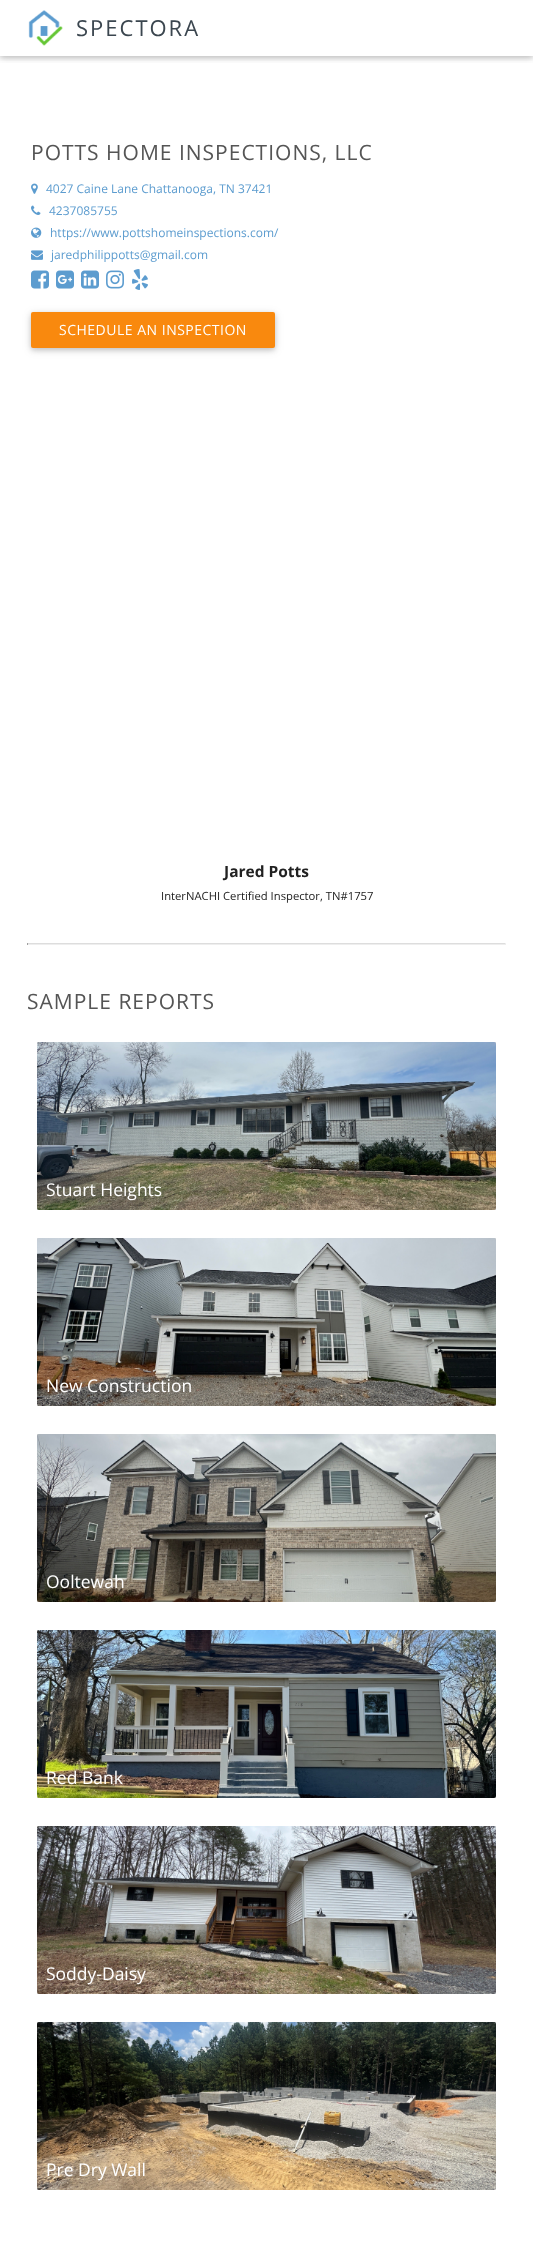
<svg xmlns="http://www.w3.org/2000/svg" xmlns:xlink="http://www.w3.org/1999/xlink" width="533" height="2250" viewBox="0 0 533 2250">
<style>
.cls-1{font:22px Open Sans;letter-spacing:2px;fill:#3b464f}
.cls-2{font:21px Open Sans;letter-spacing:1px;fill:#555555}
.cls-3{font:12px Open Sans;fill:#5c9ccf}
.cls-4{font:14px Open Sans;letter-spacing:0.5px;fill:#ffffff}
.cls-5{font:bold 15.5px Open Sans;fill:#212121}
.cls-6{font:11.25px Open Sans;fill:#212121}
.cls-7{font:17.5px Open Sans;fill:#ffffff}
.cls-8{font:14px Open Sans;fill:#20271b}
</style>
<defs>
<clipPath id="clip1"><rect x="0" y="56" width="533" height="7"/></clipPath>
<clipPath id="clip2"><rect x="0" y="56" width="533" height="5"/></clipPath>
<clipPath id="clip3"><rect x="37" y="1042" width="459" height="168"/></clipPath>
<clipPath id="clip4"><rect x="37" y="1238" width="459" height="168"/></clipPath>
<clipPath id="clip5"><rect x="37" y="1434" width="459" height="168"/></clipPath>
<clipPath id="clip6"><rect x="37" y="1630" width="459" height="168"/></clipPath>
<clipPath id="clip7"><rect x="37" y="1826" width="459" height="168"/></clipPath>
<clipPath id="clip8"><rect x="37" y="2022" width="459" height="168"/></clipPath>
</defs>
<rect width="100%" height="100%" fill="#ffffff"/>
<g clip-path="url(#clip1)">
<rect fill="#000000" fill-opacity="0.12" filter="blur(5px)" x="0" y="2" width="533" height="56"/>
</g>
<g clip-path="url(#clip2)">
<rect fill="#000000" fill-opacity="0.16" filter="blur(2.5px)" x="0" y="2" width="533" height="56"/>
</g>
<image xlink:href="image0.png" x="28" y="10" width="35" height="36"/>
<image xlink:href="image1.png" x="31" y="183" width="7" height="11"/>
<image xlink:href="image2.png" x="31" y="205" width="10" height="10"/>
<image xlink:href="image3.png" x="31" y="227" width="11" height="11"/>
<image xlink:href="image4.png" x="31" y="250" width="12" height="10"/>
<image xlink:href="image5.png" x="31" y="270" width="18" height="19"/>
<image xlink:href="image6.png" x="56" y="270" width="18" height="19"/>
<image xlink:href="image7.png" x="81" y="270" width="18" height="19"/>
<image xlink:href="image8.png" x="106" y="270" width="18" height="19"/>
<image xlink:href="image9.png" x="132" y="269" width="16" height="21"/>
<rect fill="#000000" fill-opacity="0.12" filter="blur(5px)" x="31" y="314" width="244" height="36" rx="2"/>
<rect fill="#000000" fill-opacity="0.16" filter="blur(2.5px)" x="31" y="314" width="244" height="36" rx="2"/>
<rect fill="#f9890e" x="31" y="312" width="244" height="36" rx="2"/>
<rect fill="#dddddd" x="27" y="943" width="479" height="1"/>
<rect fill="#eeeeee" x="505" y="943" width="1" height="2"/>
<rect fill="#eeeeee" x="27" y="944" width="479" height="1"/>
<rect fill="#9f9f9f" x="27" y="943" width="1" height="2"/>
<g clip-path="url(#clip3)">
<rect fill="#cccccc" filter="blur(1px)" x="36" y="1041" width="461" height="170" rx="3"/>
</g>
<image xlink:href="image10.png" x="37" y="1042" width="459" height="168"/>
<g clip-path="url(#clip4)">
<rect fill="#cccccc" filter="blur(1px)" x="36" y="1237" width="461" height="170" rx="3"/>
</g>
<image xlink:href="image11.png" x="37" y="1238" width="459" height="168"/>
<g clip-path="url(#clip5)">
<rect fill="#cccccc" filter="blur(1px)" x="36" y="1433" width="461" height="170" rx="3"/>
</g>
<image xlink:href="image12.png" x="37" y="1434" width="459" height="168"/>
<g clip-path="url(#clip6)">
<rect fill="#cccccc" filter="blur(1px)" x="36" y="1629" width="461" height="170" rx="3"/>
</g>
<image xlink:href="image13.png" x="37" y="1630" width="459" height="168"/>
<g clip-path="url(#clip7)">
<rect fill="#cccccc" filter="blur(1px)" x="36" y="1825" width="461" height="170" rx="3"/>
</g>
<image xlink:href="image14.png" x="37" y="1826" width="459" height="168"/>
<g clip-path="url(#clip8)">
<rect fill="#cccccc" filter="blur(1px)" x="36" y="2021" width="461" height="170" rx="3"/>
</g>
<image xlink:href="image15.png" x="37" y="2022" width="459" height="168"/>
<text class="cls-1" x="76" y="36">SPECTORA</text>
<text class="cls-2" x="31" y="160">POTTS HOME INSPECTIONS, LLC</text>
<text class="cls-3" x="46" y="193">4027 Caine Lane Chattanooga, TN 37421</text>
<text class="cls-3" x="49" y="215">4237085755</text>
<text class="cls-3" x="50" y="237">https://www.pottshomeinspections.com/</text>
<text class="cls-3" x="51" y="259">jaredphilippotts@gmail.com</text>
<text class="cls-4" x="59" y="335">SCHEDULE AN INSPECTION</text>
<text class="cls-5" x="224" y="877">Jared Potts</text>
<text class="cls-6" x="161" y="900">InterNACHI Certified Inspector, TN#1757</text>
<text class="cls-2" x="27" y="1009">SAMPLE REPORTS</text>
<text class="cls-7" x="46" y="1196">Stuart Heights</text>
<text class="cls-7" x="46" y="1392">New Construction</text>
<text class="cls-7" x="46" y="1588">Ooltewah</text>
<text class="cls-7" x="46" y="1784">Red Bank</text>
<text class="cls-7" x="46" y="1980">Soddy-Daisy</text>
<text class="cls-8" x="187" y="2071">e i</text>
<text class="cls-7" x="46" y="2176">Pre Dry Wall</text>
</svg>
